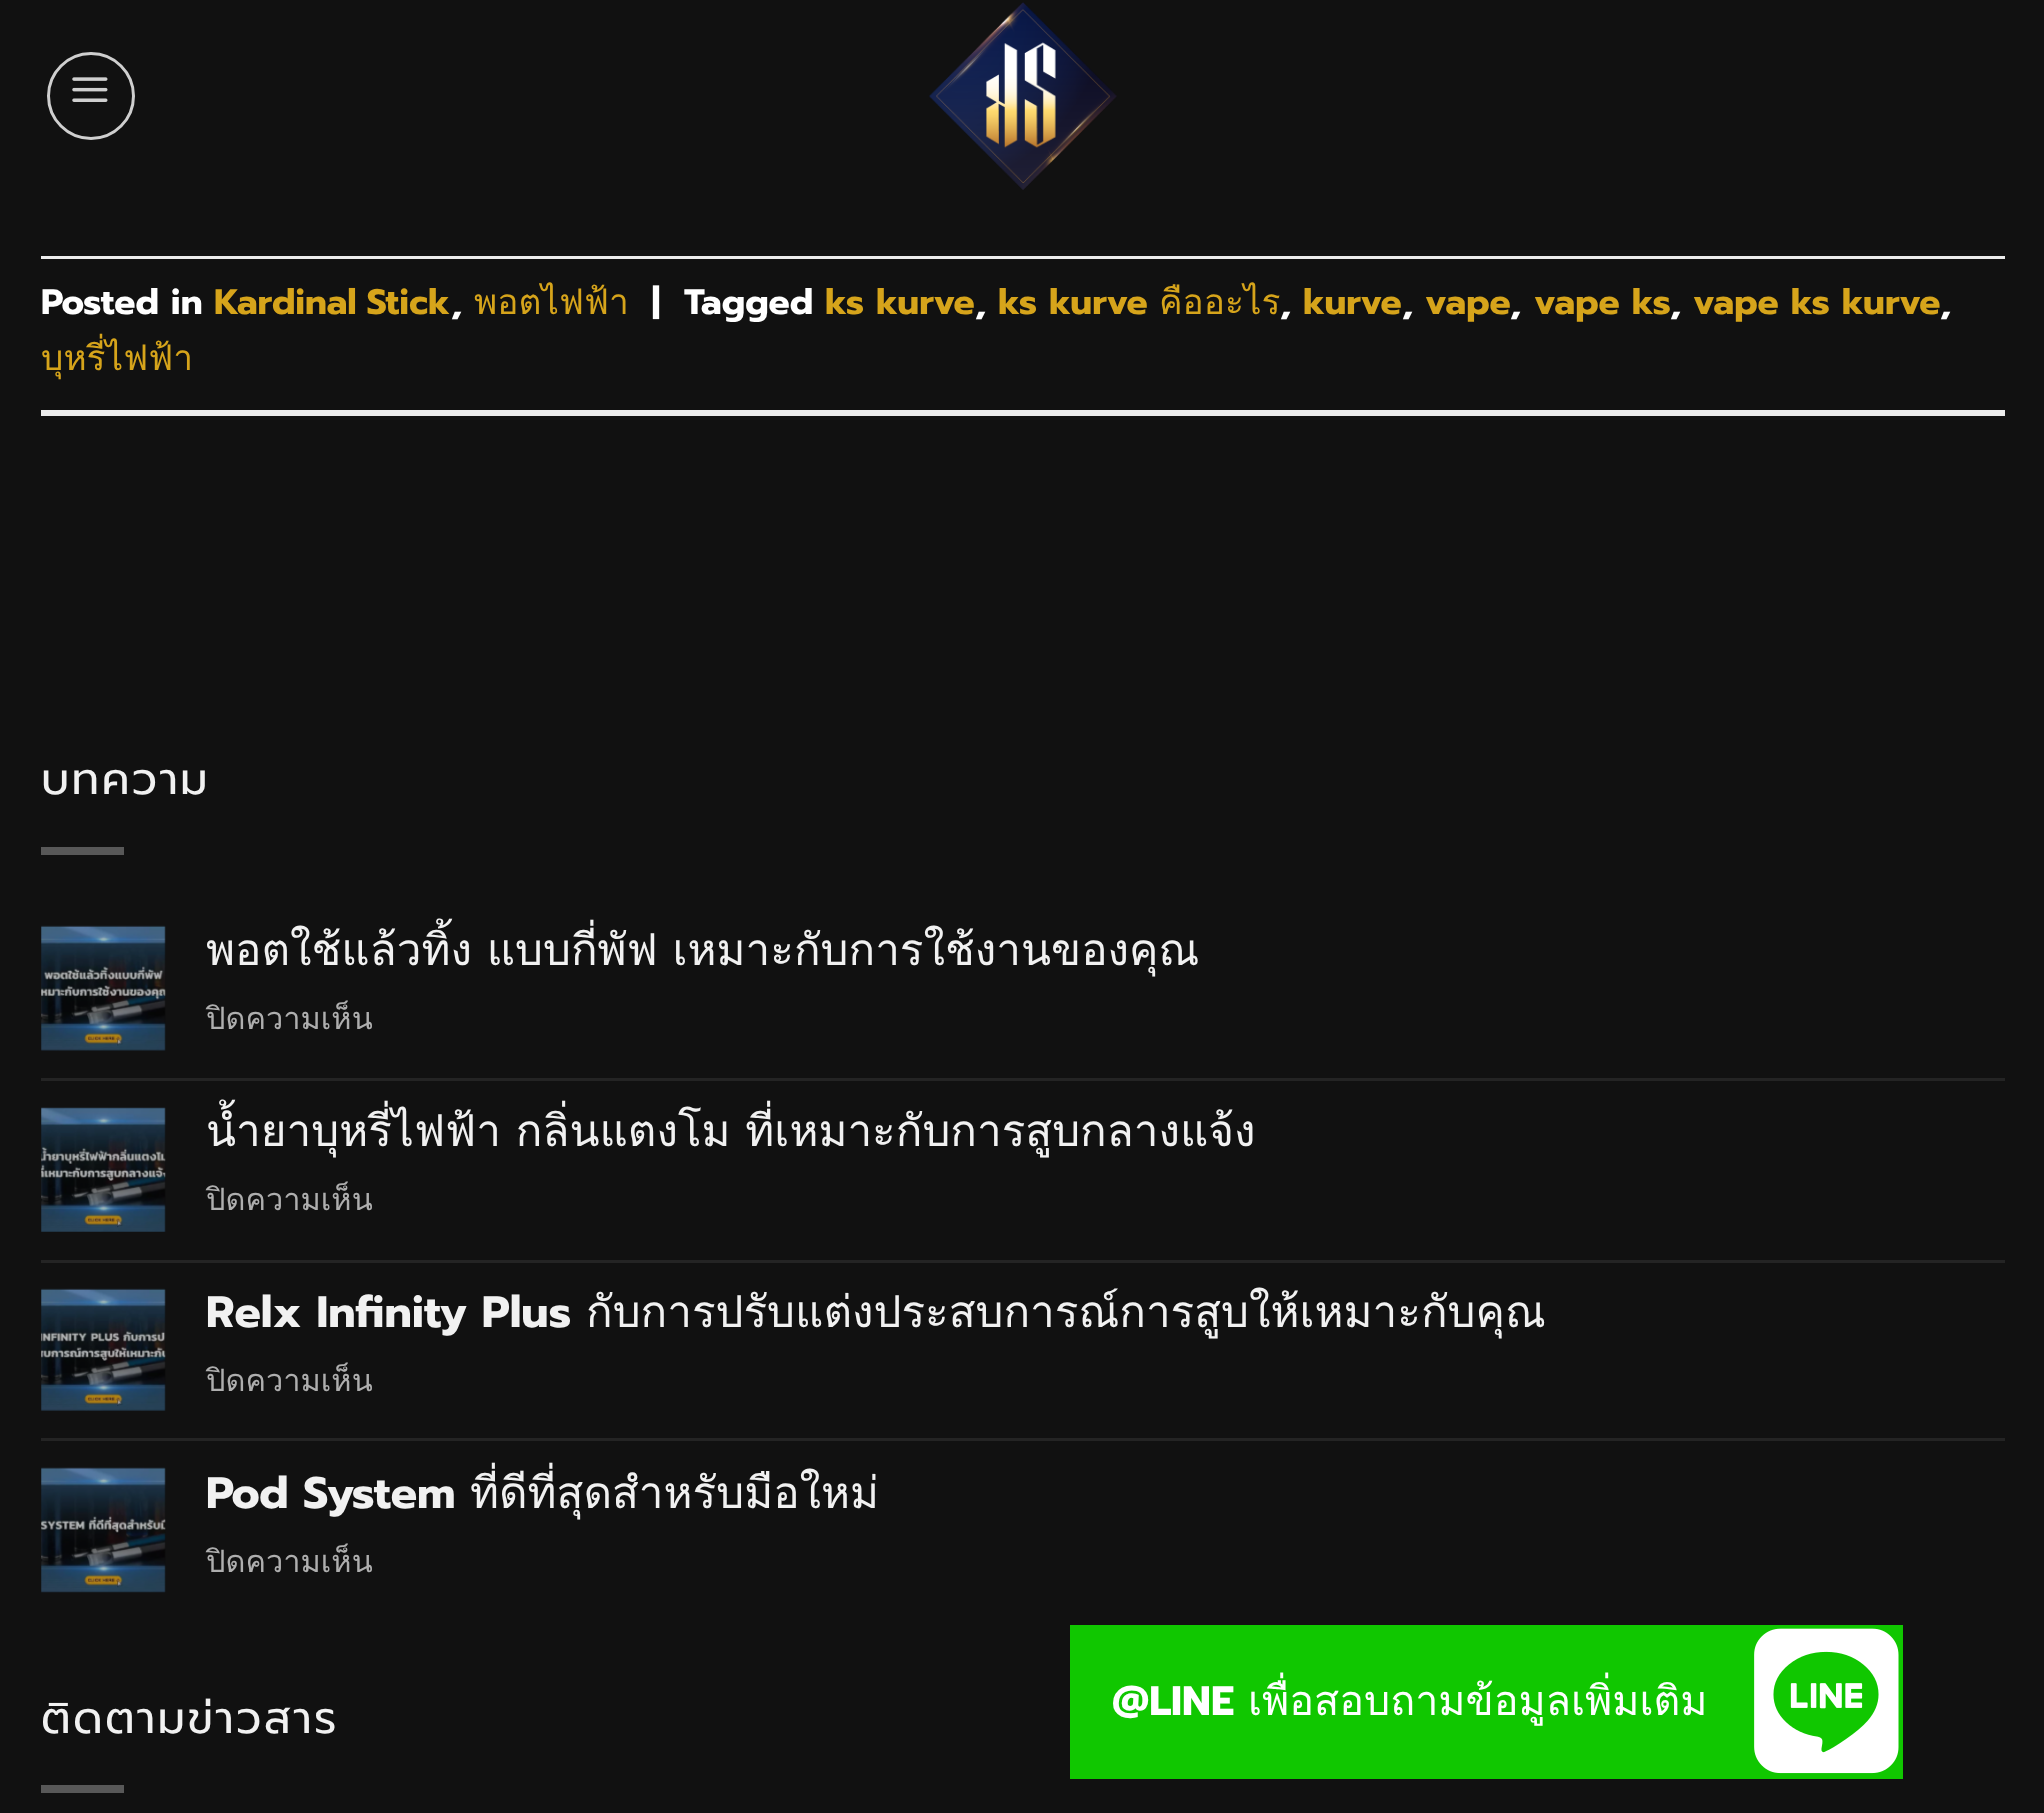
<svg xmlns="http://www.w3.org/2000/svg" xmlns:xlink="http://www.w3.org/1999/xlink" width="2044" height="1813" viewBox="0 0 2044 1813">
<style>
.cls-1{font:bold 35.25px Prompt;fill:#ffffff}
.cls-2{font:bold 35.25px Prompt;fill:#d6a41b}
.cls-3{font:35.25px Loma;fill:#d6a41b}
.cls-4{font:44px Prompt;letter-spacing:2.25px;fill:#f1f1f1}
.cls-5{font:44px Loma;fill:#f1f1f1}
.cls-6{font:30.75px Loma;fill:#aeaeae}
.cls-7{font:bold 44px Prompt;fill:#f1f1f1}
.cls-8{font:bold 41.25px Prompt;fill:#ffffff}
.cls-9{font:41.25px Loma;fill:#ffffff}
</style>
<rect width="100%" height="100%" fill="#111111"/>
<circle fill="none" stroke="#cfcfcf" stroke-width="3" cx="91" cy="96" r="42.5"/>
<image xlink:href="image0.png" x="72" y="77" width="36" height="25"/>
<image xlink:href="image1.png" x="929" y="2" width="188" height="188"/>
<rect fill="#ececec" x="41" y="256" width="1964" height="3"/>
<rect fill="#ececec" x="41" y="410" width="1964" height="6"/>
<rect fill="#585858" x="41" y="847" width="83" height="8"/>
<image xlink:href="image2.png" x="41" y="925" width="125" height="126"/>
<rect fill="#242424" x="41" y="1078" width="1964" height="3"/>
<image xlink:href="image3.png" x="41" y="1107" width="125" height="125"/>
<rect fill="#242424" x="41" y="1260" width="1964" height="3"/>
<image xlink:href="image4.png" x="41" y="1288" width="125" height="123"/>
<rect fill="#242424" x="41" y="1438" width="1964" height="3"/>
<image xlink:href="image5.png" x="41" y="1467" width="125" height="126"/>
<rect fill="#585858" x="41" y="1785" width="83" height="8"/>
<rect fill="#10c700" x="1070" y="1625" width="833" height="154"/>
<image xlink:href="image6.png" x="1754" y="1628" width="145" height="146"/>
<text class="cls-1" x="41" y="314">Posted in</text>
<text class="cls-2" x="214" y="314" word-spacing="-2">Kardinal Stick</text>
<text class="cls-1" x="451" y="314">,</text>
<text class="cls-3" x="474" y="314">พอตไฟฟ้า</text>
<text class="cls-1" x="652" y="314">|</text>
<text class="cls-1" x="684" y="314">Tagged</text>
<text class="cls-2" x="825" y="314">ks kurve</text>
<text class="cls-1" x="975" y="314">,</text>
<text class="cls-2" x="998" y="314">ks kurve</text>
<text class="cls-3" x="1159" y="314">คืออะไร</text>
<text class="cls-1" x="1280" y="314">,</text>
<text class="cls-2" x="1303" y="314">kurve</text>
<text class="cls-1" x="1402" y="314">,</text>
<text class="cls-2" x="1425" y="314">vape</text>
<text class="cls-1" x="1510" y="314">,</text>
<text class="cls-2" x="1534" y="314">vape ks</text>
<text class="cls-1" x="1670" y="314">,</text>
<text class="cls-2" x="1693" y="314">vape ks kurve</text>
<text class="cls-1" x="1940" y="314">,</text>
<text class="cls-3" x="41" y="370">บุหรี่ไฟฟ้า</text>
<text class="cls-4" x="41" y="794">บทความ</text>
<text class="cls-5" x="206" y="965">พอตใช้แล้วทิ้ง แบบกี่พัฟ เหมาะกับการใช้งานของคุณ</text>
<text class="cls-6" x="206" y="1029">ปิดความเห็น</text>
<text class="cls-5" x="206" y="1146">น้ำยาบุหรี่ไฟฟ้า กลิ่นแตงโม ที่เหมาะกับการสูบกลางแจ้ง</text>
<text class="cls-6" x="206" y="1210">ปิดความเห็น</text>
<text class="cls-7" x="206" y="1327">Relx Infinity Plus</text>
<text class="cls-5" x="586" y="1327">กับการปรับแต่งประสบการณ์การสูบให้เหมาะกับคุณ</text>
<text class="cls-6" x="206" y="1391">ปิดความเห็น</text>
<text class="cls-7" x="206" y="1508">Pod System</text>
<text class="cls-5" x="470" y="1508">ที่ดีที่สุดสำหรับมือใหม่</text>
<text class="cls-6" x="206" y="1572">ปิดความเห็น</text>
<text class="cls-4" x="41" y="1733">ติดตามข่าวสาร</text>
<text class="cls-8" x="1112" y="1715">@LINE</text>
<text class="cls-9" x="1248" y="1715">เพื่อสอบถามข้อมูลเพิ่มเติม</text>
</svg>
